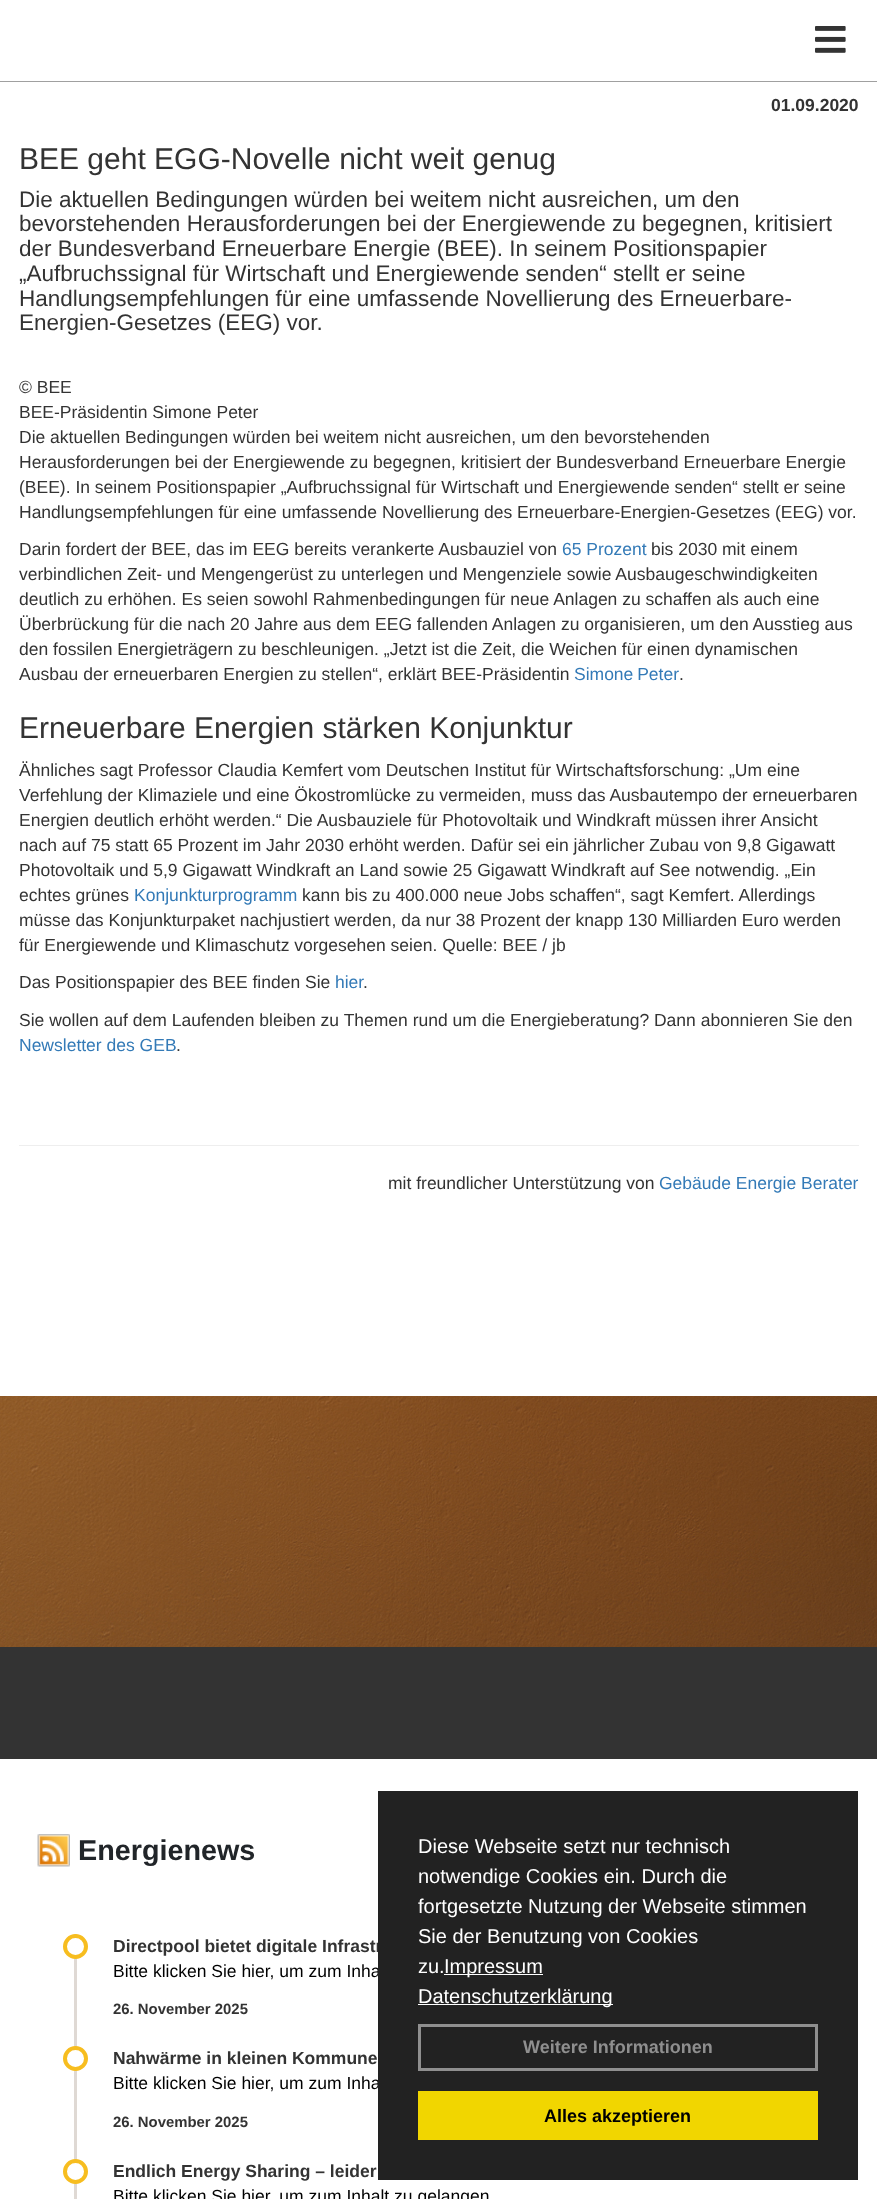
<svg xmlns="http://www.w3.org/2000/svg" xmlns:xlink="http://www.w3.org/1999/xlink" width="877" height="2199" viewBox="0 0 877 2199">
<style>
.cls-1{font:bold 17.5px Liberation Sans;fill:#333333}
.cls-2{font:30px Liberation Sans;fill:#333333}
.cls-3{font:22.5px Liberation Sans;fill:#333333}
.cls-4{font:17.5px Liberation Sans;fill:#333333}
.cls-5{font:17.5px Liberation Sans;fill:#337ab7}
.cls-6{font:bold 28.75px Liberation Sans;fill:#212529}
.cls-7{font:17.5px Liberation Sans;fill:#000000}
.cls-8{font:bold 14.9px Liberation Sans;fill:#333333}
.cls-9{font:20px Liberation Sans;fill:#ffffff}
.cls-10{font:bold 18px Liberation Sans;fill:#8f8f8f}
.cls-11{font:bold 18px Liberation Sans;fill:#000000}
</style>
<rect width="100%" height="100%" fill="#ffffff"/>
<rect fill="#a0a0a0" x="0" y="81" width="877" height="1"/>
<image xlink:href="image0.png" x="815" y="26" width="31" height="27"/>
<rect fill="#eeeeee" x="19" y="1145" width="840" height="1"/>
<image xlink:href="image1.png" x="0" y="1396" width="877" height="251"/>
<rect fill="#333333" x="0" y="1647" width="877" height="112"/>
<image xlink:href="image2.png" x="37" y="1834" width="33" height="33"/>
<rect fill="#dfd9d4" x="74" y="1934" width="3" height="265"/>
<circle fill="#ffffff" stroke="#f7bd1f" stroke-width="4" cx="75.5" cy="1946.5" r="10.5"/>
<circle fill="#ffffff" stroke="#f7bd1f" stroke-width="4" cx="75.5" cy="2058.5" r="10.5"/>
<circle fill="#ffffff" stroke="#f7bd1f" stroke-width="4" cx="75.5" cy="2171.5" r="10.5"/>
<text class="cls-1" x="771" y="111">01.09.2020</text>
<text class="cls-2" x="19" y="169">BEE geht EGG-Novelle nicht weit genug</text>
<text class="cls-3"><tspan x="19" y="207">Die aktuellen Bedingungen würden bei weitem nicht ausreichen, um den</tspan><tspan x="19" y="231">bevorstehenden Herausforderungen bei der Energiewende zu begegnen, kritisiert</tspan><tspan x="19" y="256">der Bundesverband Erneuerbare Energie (BEE). In seinem Positionspapier</tspan><tspan x="19" y="281">„Aufbruchssignal für Wirtschaft und Energiewende senden“ stellt er seine</tspan><tspan x="19" y="306">Handlungsempfehlungen für eine umfassende Novellierung des Erneuerbare-</tspan><tspan x="19" y="330">Energien-Gesetzes (EEG) vor.</tspan></text>
<text class="cls-4"><tspan x="19" y="393">© BEE</tspan><tspan x="19" y="418">BEE-Präsidentin Simone Peter</tspan><tspan x="19" y="443">Die aktuellen Bedingungen würden bei weitem nicht ausreichen, um den bevorstehenden</tspan><tspan x="19" y="468">Herausforderungen bei der Energiewende zu begegnen, kritisiert der Bundesverband Erneuerbare Energie</tspan><tspan x="19" y="493">(BEE). In seinem Positionspapier „Aufbruchssignal für Wirtschaft und Energiewende senden“ stellt er seine</tspan><tspan x="19" y="518">Handlungsempfehlungen für eine umfassende Novellierung des Erneuerbare-Energien-Gesetzes (EEG) vor.</tspan></text>
<text class="cls-4" x="19" y="555">Darin fordert der BEE, das im EEG bereits verankerte Ausbauziel von</text>
<text class="cls-5" x="562" y="555">65 Prozent</text>
<text class="cls-4" x="651" y="555">bis 2030 mit einem</text>
<text class="cls-4"><tspan x="19" y="580">verbindlichen Zeit- und Mengengerüst zu unterlegen und Mengenziele sowie Ausbaugeschwindigkeiten</tspan><tspan x="19" y="605">deutlich zu erhöhen. Es seien sowohl Rahmenbedingungen für neue Anlagen zu schaffen als auch eine</tspan><tspan x="19" y="630">Überbrückung für die nach 20 Jahre aus dem EEG fallenden Anlagen zu organisieren, um den Ausstieg aus</tspan><tspan x="19" y="655">den fossilen Energieträgern zu beschleunigen. „Jetzt ist die Zeit, die Weichen für einen dynamischen</tspan><tspan x="19" y="680">Ausbau der erneuerbaren Energien zu stellen“, erklärt BEE-Präsidentin</tspan></text>
<text class="cls-5" x="574" y="680" word-spacing="-1">Simone Peter</text>
<text class="cls-4" x="679" y="680">.</text>
<text class="cls-2" x="19" y="738">Erneuerbare Energien stärken Konjunktur</text>
<text class="cls-4"><tspan x="19" y="776">Ähnliches sagt Professor Claudia Kemfert vom Deutschen Institut für Wirtschaftsforschung: „Um eine</tspan><tspan x="19" y="801">Verfehlung der Klimaziele und eine Ökostromlücke zu vermeiden, muss das Ausbautempo der erneuerbaren</tspan><tspan x="19" y="826">Energien deutlich erhöht werden.“ Die Ausbauziele für Photovoltaik und Windkraft müssen ihrer Ansicht</tspan><tspan x="19" y="851">nach auf 75 statt 65 Prozent im Jahr 2030 erhöht werden. Dafür sei ein jährlicher Zubau von 9,8 Gigawatt</tspan><tspan x="19" y="876">Photovoltaik und 5,9 Gigawatt Windkraft an Land sowie 25 Gigawatt Windkraft auf See notwendig. „Ein</tspan><tspan x="19" y="901">echtes grünes</tspan></text>
<text class="cls-5" x="134" y="901">Konjunkturprogramm</text>
<text class="cls-4" x="302" y="901">kann bis zu 400.000 neue Jobs schaffen“, sagt Kemfert. Allerdings</text>
<text class="cls-4"><tspan x="19" y="926">müsse das Konjunkturpaket nachjustiert werden, da nur 38 Prozent der knapp 130 Milliarden Euro werden</tspan><tspan x="19" y="951">für Energiewende und Klimaschutz vorgesehen seien. Quelle: BEE / jb</tspan></text>
<text class="cls-4" x="19" y="988">Das Positionspapier des BEE finden Sie</text>
<text class="cls-5" x="335" y="988">hier</text>
<text class="cls-4" x="363" y="988">.</text>
<text class="cls-4" x="19" y="1026">Sie wollen auf dem Laufenden bleiben zu Themen rund um die Energieberatung? Dann abonnieren Sie den</text>
<text class="cls-5" x="19" y="1051">Newsletter des GEB</text>
<text class="cls-4" x="176" y="1051">.</text>
<text class="cls-4" x="388" y="1189">mit freundlicher Unterstützung von</text>
<text class="cls-5" x="659" y="1189">Gebäude Energie Berater</text>
<text class="cls-6" x="78" y="1860">Energienews</text>
<text class="cls-1" x="113" y="1952">Directpool bietet digitale Infrastr</text>
<text class="cls-7" x="113" y="1977">Bitte klicken Sie hier, um zum Inha</text>
<text class="cls-8" x="113" y="2014">26. November 2025</text>
<text class="cls-1" x="113" y="2064">Nahwärme in kleinen Kommune</text>
<text class="cls-7" x="113" y="2089">Bitte klicken Sie hier, um zum Inha</text>
<text class="cls-8" x="113" y="2127">26. November 2025</text>
<text class="cls-1" x="113" y="2177">Endlich Energy Sharing – leider</text>
<text class="cls-7" x="113" y="2202">Bitte klicken Sie hier, um zum Inhalt zu gelangen</text>
<rect fill="#222222" x="378" y="1791" width="480" height="389"/>
<text class="cls-9"><tspan x="418" y="1853">Diese Webseite setzt nur technisch</tspan><tspan x="418" y="1883">notwendige Cookies ein. Durch die</tspan><tspan x="418" y="1913">fortgesetzte Nutzung der Webseite stimmen</tspan><tspan x="418" y="1943">Sie der Benutzung von Cookies</tspan><tspan x="418" y="1973">zu.</tspan></text>
<rect fill="#ffffff" x="444" y="1974" width="99" height="1"/>
<text class="cls-9" x="444" y="1973">Impressum</text>
<rect fill="#ffffff" x="418" y="2004" width="195" height="1"/>
<text class="cls-9" x="418" y="2003">Datenschutzerklärung</text>
<rect fill="none" stroke="#8f8f8f" stroke-width="3" x="419.5" y="2025.5" width="397" height="44"/>
<text class="cls-10" x="523" y="2053">Weitere Informationen</text>
<rect fill="#f1d600" x="418" y="2091" width="400" height="49"/>
<text class="cls-11" x="544" y="2122">Alles akzeptieren</text>
</svg>
